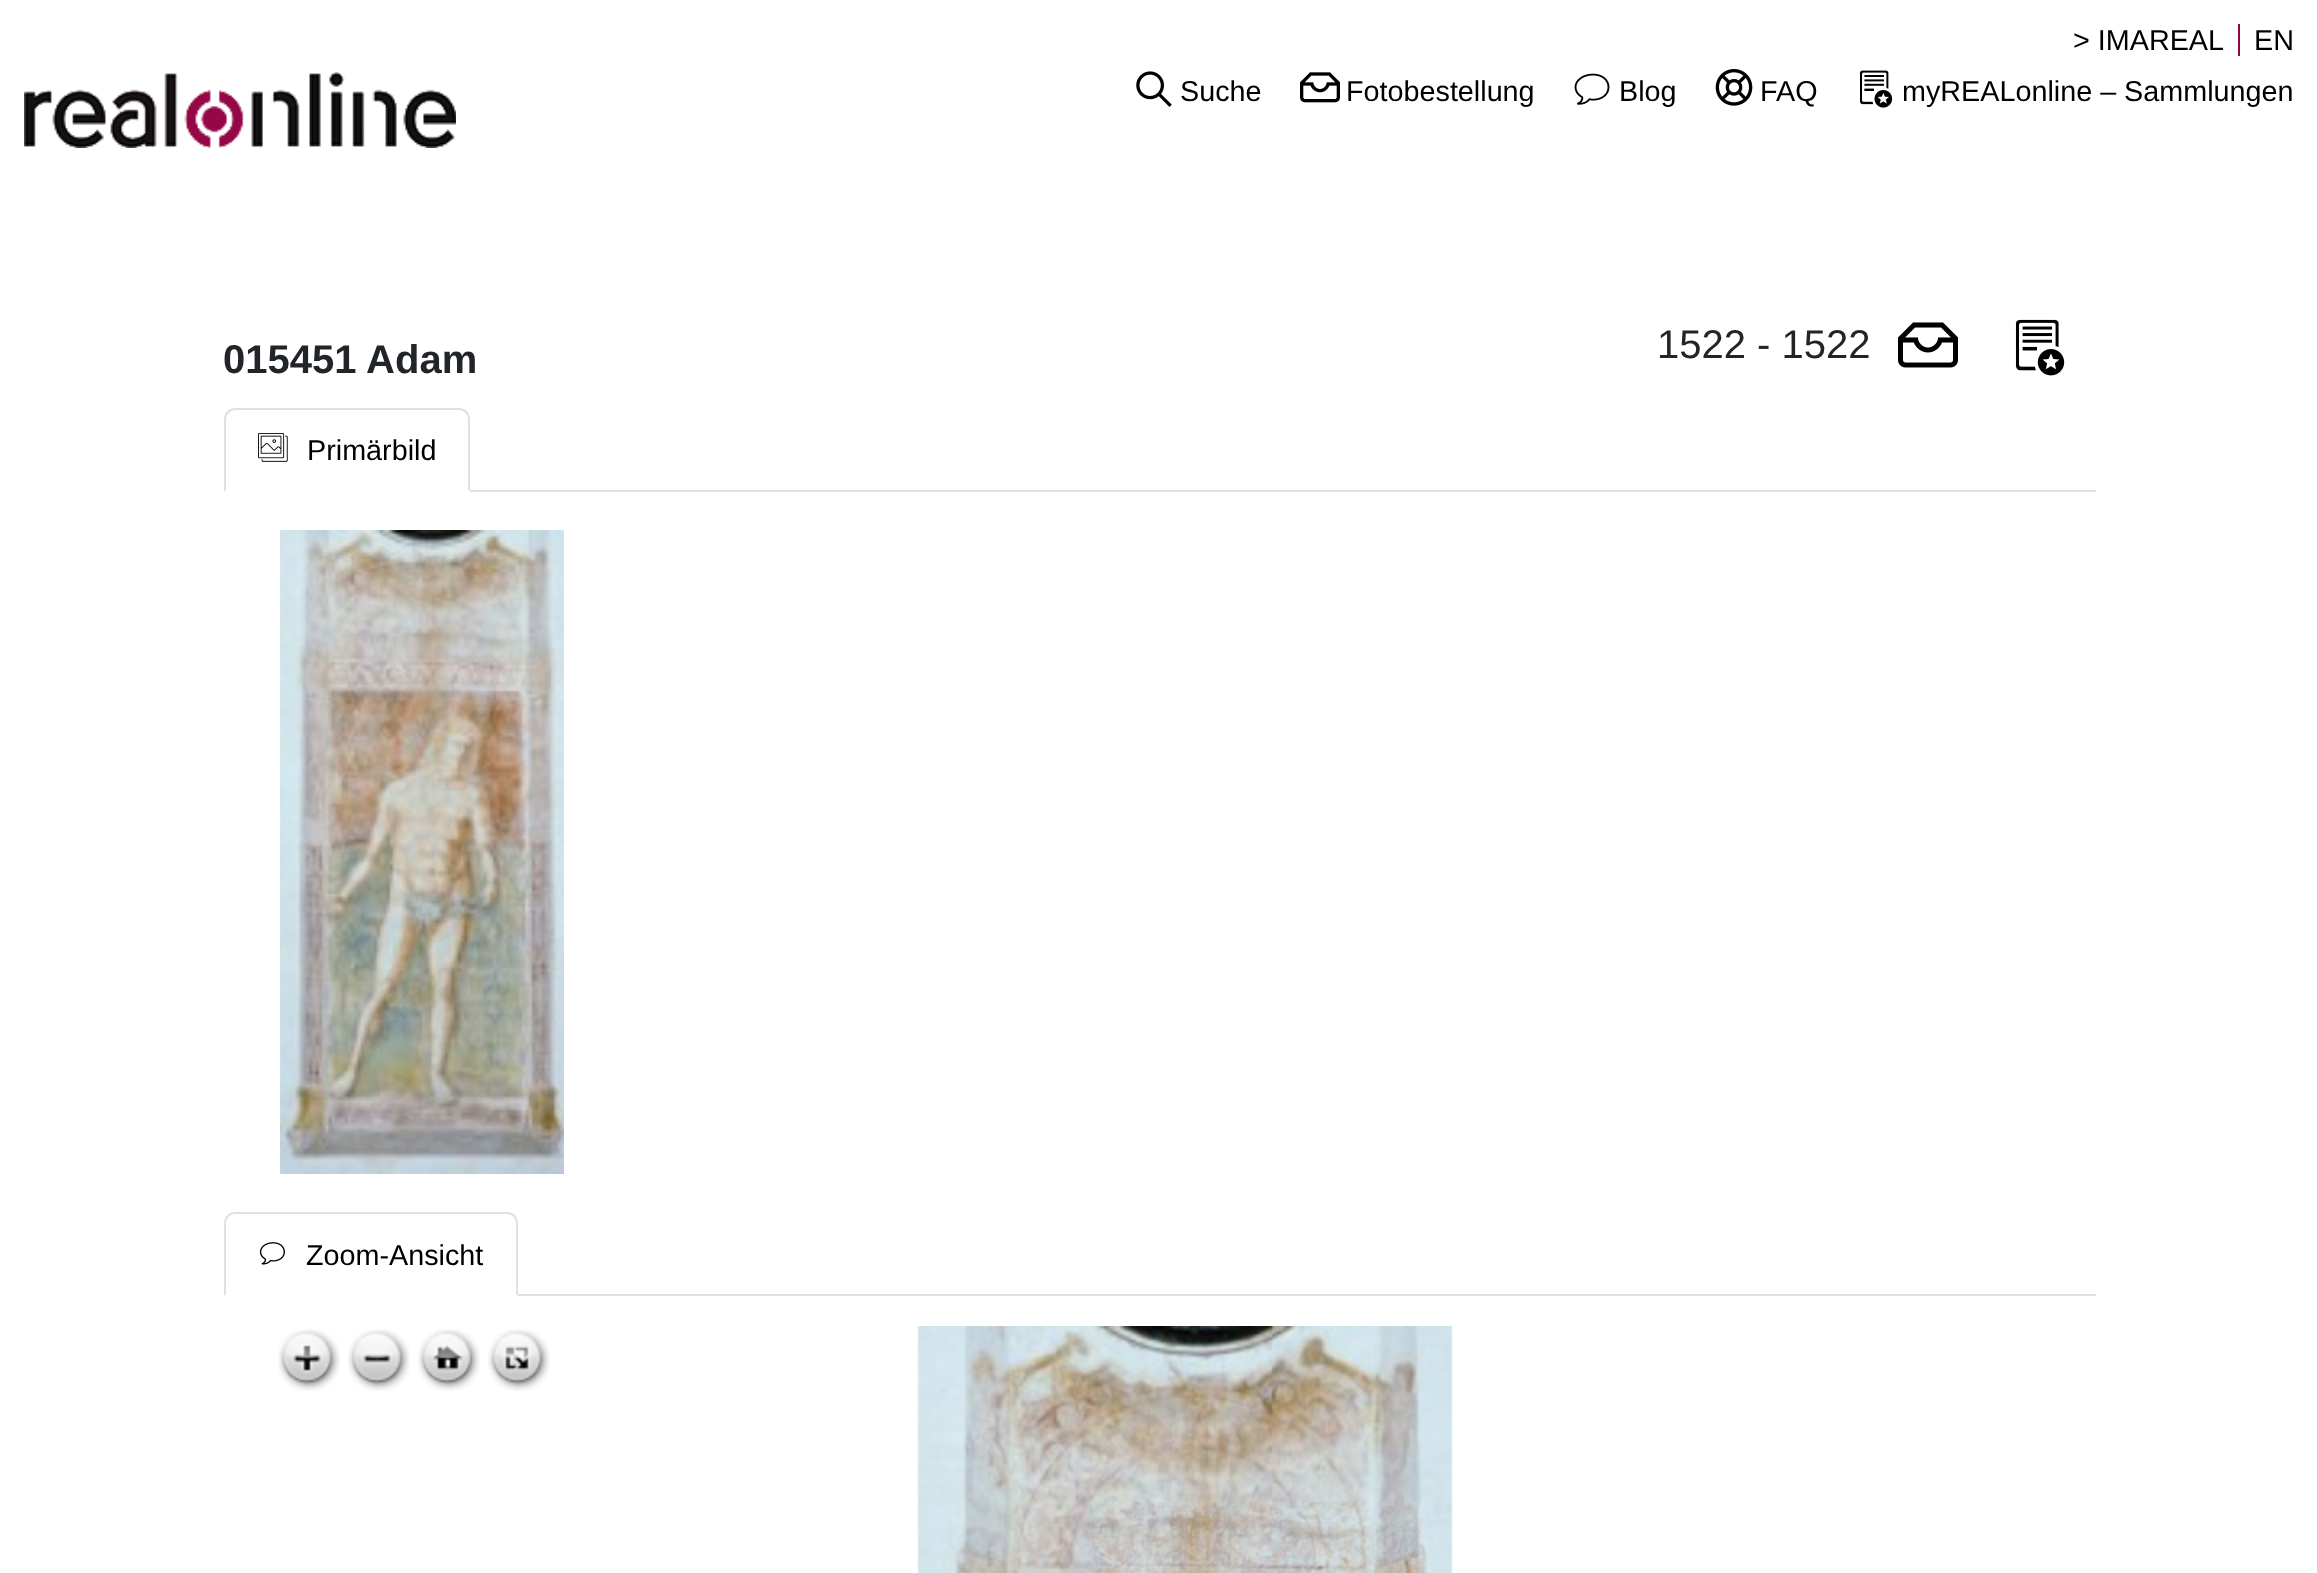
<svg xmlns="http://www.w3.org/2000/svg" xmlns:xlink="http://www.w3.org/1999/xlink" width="2317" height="1573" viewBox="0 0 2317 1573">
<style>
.cls-1{font:28.75px Arimo;fill:#000000}
.cls-2{font:bold 40px Arimo;fill:#212529}
.cls-3{font:40px Arimo;fill:#212529}
</style>
<rect width="100%" height="100%" fill="#ffffff"/>
<image xlink:href="image0.png" x="24" y="72" width="432" height="76"/>
<rect fill="#950848" x="2238" y="24" width="2" height="32"/>
<image xlink:href="image1.png" x="1136" y="71" width="36" height="36"/>
<image xlink:href="image2.png" x="1300" y="72" width="40" height="31"/>
<image xlink:href="image3.png" x="1574" y="73" width="36" height="32"/>
<image xlink:href="image4.png" x="1715" y="69" width="38" height="37"/>
<image xlink:href="image5.png" x="1860" y="70" width="33" height="38"/>
<image xlink:href="image6.png" x="1898" y="322" width="60" height="46"/>
<image xlink:href="image7.png" x="2015" y="319" width="50" height="57"/>
<rect fill="#dee2e6" x="470" y="490" width="1626" height="2"/>
<path fill="#dee2e6" d="M236 408C232 408 230 409 227 411L229 413C230 411 233 410 236 410H458C461 410 464 411 465 413L467 411C464 409 462 408 458 408Z"/>
<path fill="#dee2e6" d="M470 492V420C470 416 469 414 467 411L465 413C467 414 468 417 468 420V490Z"/>
<path fill="#ffffff" d="M470 492L468 490H226L224 492Z"/>
<path fill="#dee2e6" d="M224 492L226 490V420C226 417 227 414 229 413L227 411C225 414 224 416 224 420Z"/>
<image xlink:href="image8.png" x="258" y="433" width="30" height="29"/>
<image xlink:href="image9.png" x="280" y="530" width="284" height="644"/>
<rect fill="#dee2e6" x="518" y="1294" width="1578" height="2"/>
<path fill="#dee2e6" d="M236 1212C232 1212 230 1213 227 1215L229 1217C230 1215 233 1214 236 1214H506C509 1214 512 1215 513 1217L515 1215C512 1213 510 1212 506 1212Z"/>
<path fill="#dee2e6" d="M518 1296V1224C518 1220 517 1218 515 1215L513 1217C515 1218 516 1221 516 1224V1294Z"/>
<path fill="#ffffff" d="M518 1296L516 1294H226L224 1296Z"/>
<path fill="#dee2e6" d="M224 1296L226 1294V1224C226 1221 227 1218 229 1217L227 1215C225 1218 224 1220 224 1224Z"/>
<image xlink:href="image10.png" x="259" y="1242" width="26" height="23"/>
<image xlink:href="image11.png" x="278" y="1329" width="62" height="62"/>
<image xlink:href="image12.png" x="348" y="1329" width="62" height="62"/>
<image xlink:href="image13.png" x="418" y="1329" width="62" height="62"/>
<image xlink:href="image14.png" x="488" y="1329" width="62" height="62"/>
<image xlink:href="image15.png" x="917" y="1326" width="536" height="247"/>
<text class="cls-1" x="2073" y="50">&gt; IMAREAL</text>
<text class="cls-1" x="2254" y="50">EN</text>
<text class="cls-1" x="1180" y="101">Suche</text>
<text class="cls-1" x="1346" y="101">Fotobestellung</text>
<text class="cls-1" x="1619" y="101">Blog</text>
<text class="cls-1" x="1760" y="101">FAQ</text>
<text class="cls-1" x="1902" y="101">myREALonline – Sammlungen</text>
<text class="cls-2" x="223" y="373">015451 Adam</text>
<text class="cls-3" x="1657" y="358">1522 - 1522</text>
<text class="cls-1" x="307" y="460">Primärbild</text>
<text class="cls-1" x="306" y="1265">Zoom-Ansicht</text>
</svg>
